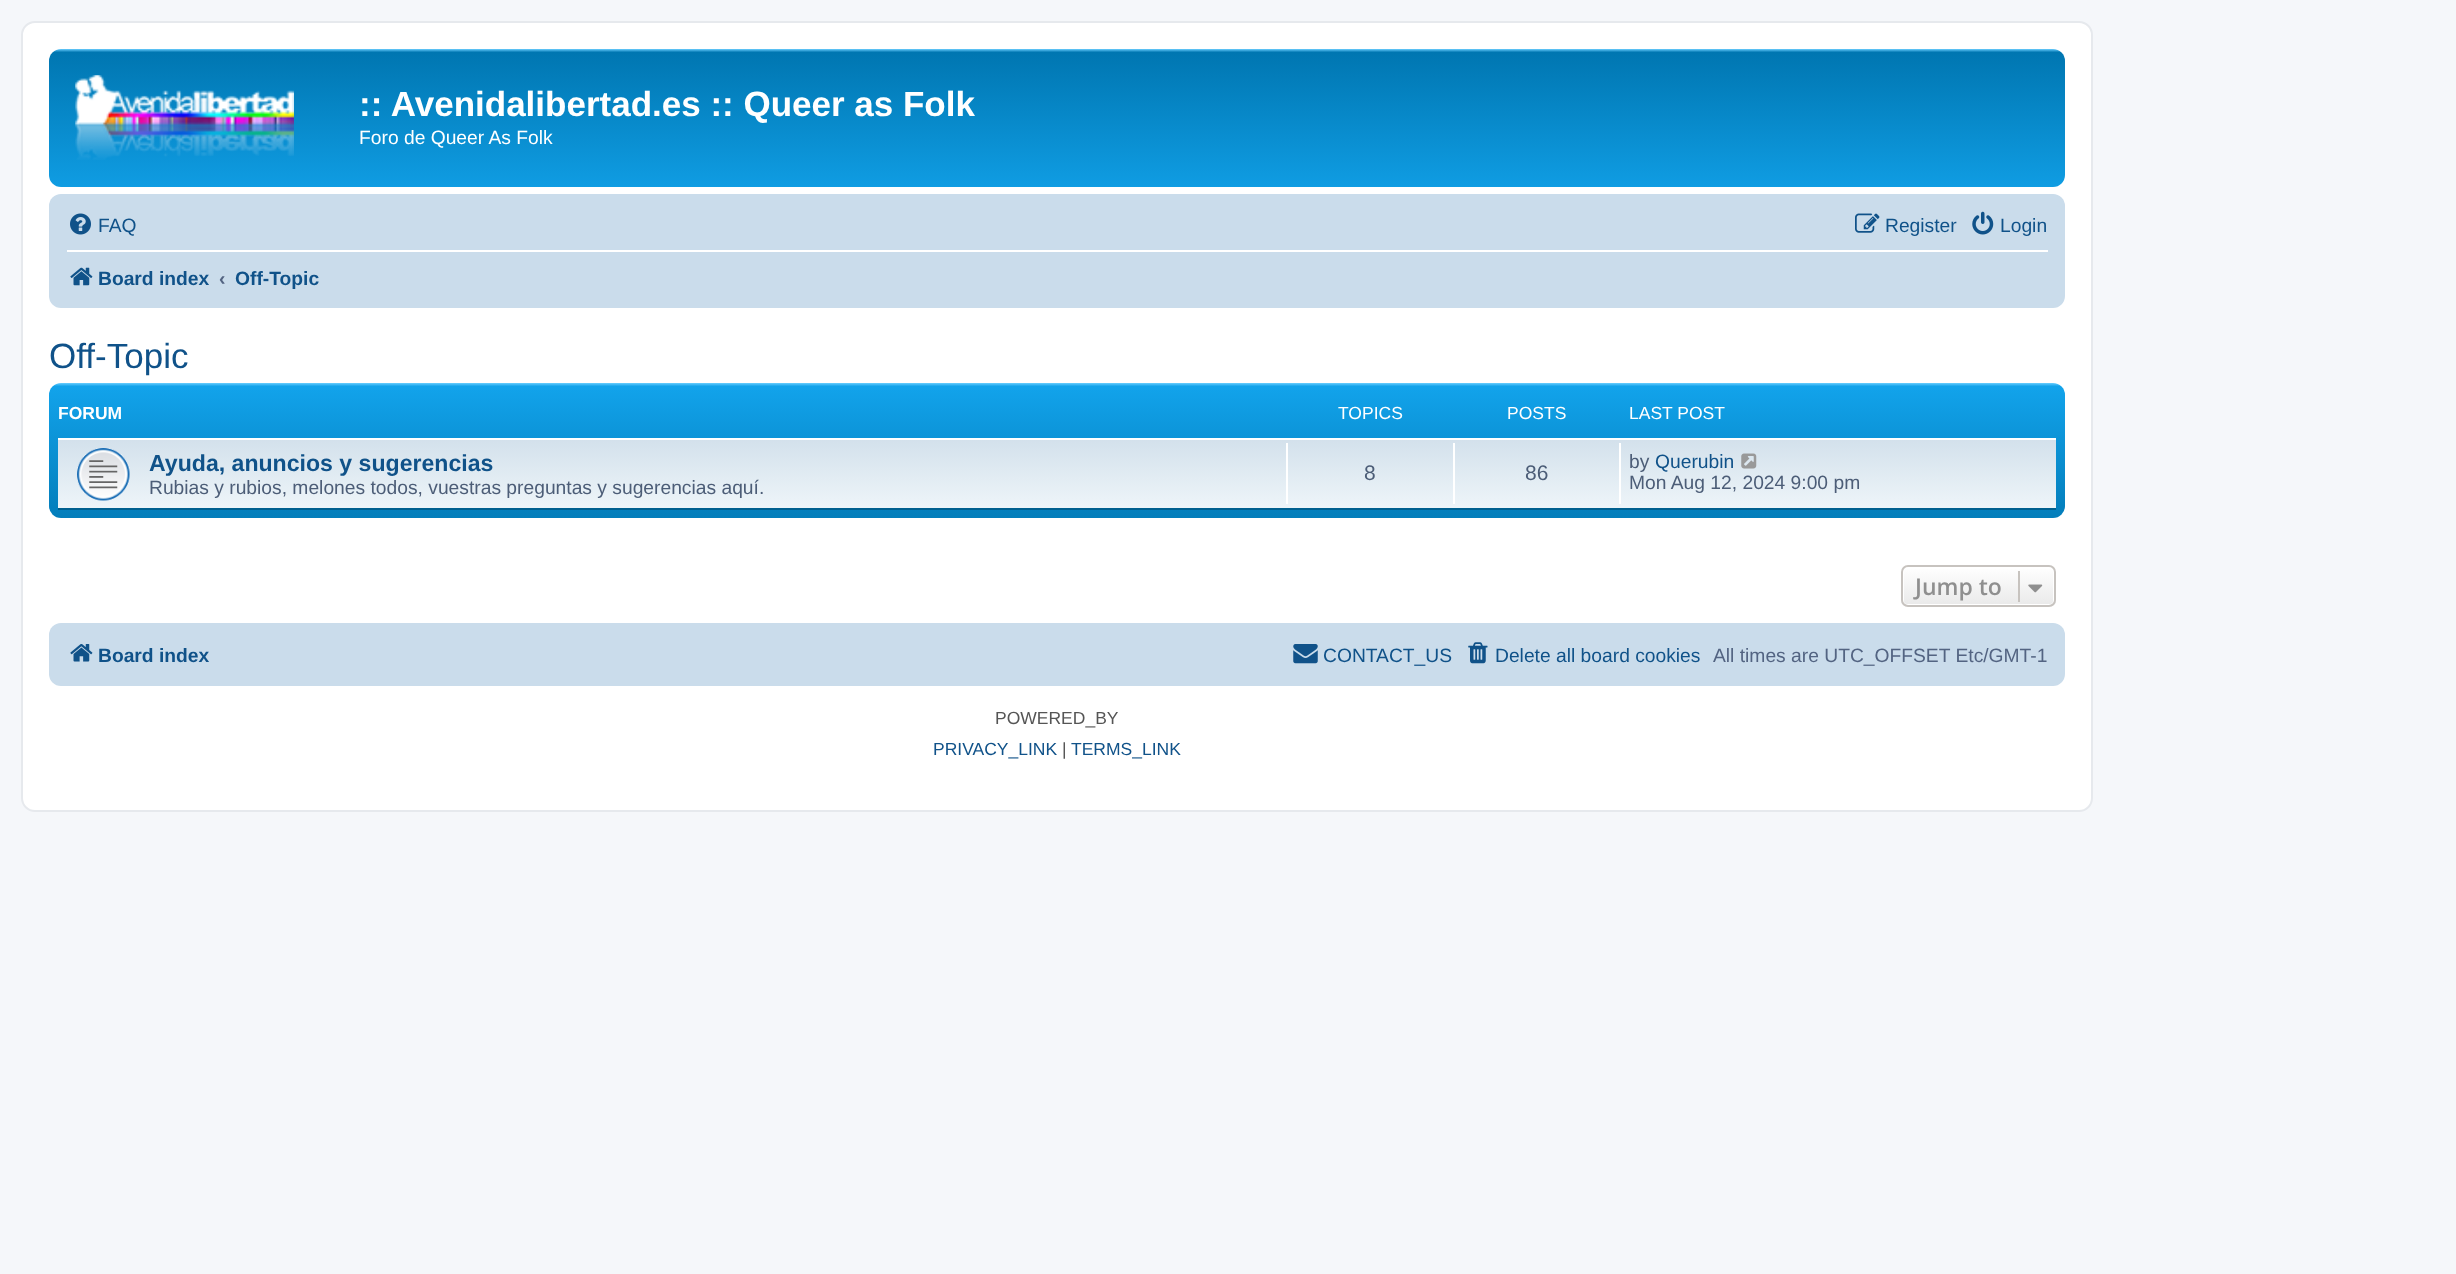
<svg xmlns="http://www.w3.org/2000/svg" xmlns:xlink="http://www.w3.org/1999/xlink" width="2456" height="1274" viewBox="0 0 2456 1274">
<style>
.cls-1{font:bold 35px Liberation Sans;fill:#ffffff}
.cls-2{font:19.25px Liberation Sans;fill:#ffffff}
.cls-3{font:19.25px Liberation Sans;fill:#105289}
.cls-4{font:bold 19.25px Liberation Sans;fill:#105289}
.cls-5{font:bold 19.25px Liberation Sans;fill:#536482}
.cls-6{font:35px Liberation Sans;fill:#105289}
.cls-7{font:bold 17.5px Liberation Sans;fill:#ffffff}
.cls-8{font:17.5px Liberation Sans;fill:#ffffff}
.cls-9{font:bold 23.1px Liberation Sans;fill:#105289}
.cls-10{font:19.25px Liberation Sans;fill:#4c5d77}
.cls-11{font:21px Liberation Sans;fill:#4c5d77}
.cls-12{font:600 23px Open Sans;fill:#8f8f8f}
.cls-13{font:19.25px Liberation Sans;fill:#536482}
.cls-14{font:17.5px Liberation Sans;fill:#555555}
.cls-15{font:17.5px Liberation Sans;fill:#105289}
</style>
<defs>
<linearGradient id="g1" gradientUnits="userSpaceOnUse" x1="1057" y1="49" x2="1057" y2="210"><stop offset="0" stop-color="#6aceff"/><stop offset="0.02" stop-color="#0076b1"/><stop offset="1" stop-color="#12a3eb"/></linearGradient>
<linearGradient id="g2" gradientUnits="userSpaceOnUse" x1="1057" y1="383" x2="1057" y2="544"><stop offset="0" stop-color="#6aceff"/><stop offset="0.02" stop-color="#12a3eb"/><stop offset="1" stop-color="#0076b1"/></linearGradient>
<linearGradient id="g3" gradientUnits="userSpaceOnUse" x1="1057" y1="437" x2="1057" y2="509"><stop offset="0" stop-color="#d2e0eb"/><stop offset="1" stop-color="#eef5f9"/></linearGradient>
<clipPath id="clip1"><rect x="1901" y="565" width="155" height="42" rx="7"/></clipPath>
<linearGradient id="g4" gradientUnits="userSpaceOnUse" x1="1978" y1="567" x2="1978" y2="606"><stop offset="0" stop-color="#ffffff"/><stop offset="1" stop-color="#e9e9e9"/></linearGradient>
</defs>
<rect width="100%" height="100%" fill="#f5f7fa"/>
<rect fill="#ffffff" stroke="#e6e9ed" stroke-width="2" x="22" y="22" width="2070" height="789" rx="13"/>
<rect fill="url(#g1)" x="49" y="49" width="2016" height="138" rx="12"/>
<image xlink:href="image0.png" x="75" y="75" width="219" height="85"/>
<rect fill="#cadceb" x="49" y="194" width="2016" height="114" rx="12"/>
<image xlink:href="image1.png" x="70" y="213" width="21" height="22"/>
<image xlink:href="image2.png" x="1855" y="213" width="25" height="20"/>
<image xlink:href="image3.png" x="1972" y="211" width="22" height="24"/>
<rect fill="#ffffff" x="67" y="250" width="1981" height="2"/>
<image xlink:href="image4.png" x="70" y="267" width="23" height="19"/>
<rect fill="url(#g2)" x="49" y="383" width="2016" height="135" rx="12"/>
<rect fill="url(#g3)" x="58" y="440" width="1998" height="68"/>
<rect fill="#ffffff" x="58" y="438" width="1998" height="2"/>
<rect fill="#00608f" x="58" y="508" width="1998" height="2"/>
<image xlink:href="image5.png" x="77" y="448" width="53" height="53"/>
<rect fill="#ffffff" x="1286" y="443" width="2" height="61"/>
<rect fill="#ffffff" x="1453" y="443" width="2" height="61"/>
<rect fill="#ffffff" x="1619" y="443" width="2" height="61"/>
<image xlink:href="image6.png" x="1741" y="453" width="16" height="16"/>
<g clip-path="url(#clip1)">
<rect fill="url(#g4)" x="1901" y="567" width="155" height="39"/>
</g>
<rect fill="none" stroke="#ffffff" stroke-width="2" x="1903" y="568" width="151" height="37" rx="4"/>
<rect fill="none" stroke="#c7c3bf" stroke-width="2" x="1902" y="566" width="153" height="40" rx="6"/>
<rect fill="#c7c3bf" x="2018" y="571" width="2" height="31"/>
<image xlink:href="image7.png" x="2028" y="584" width="15" height="9"/>
<rect fill="#cadceb" x="49" y="623" width="2016" height="63" rx="12"/>
<image xlink:href="image8.png" x="70" y="644" width="23" height="18"/>
<image xlink:href="image9.png" x="1293" y="644" width="25" height="20"/>
<image xlink:href="image10.png" x="1468" y="642" width="20" height="22"/>
<text class="cls-1" x="359" y="116">:: Avenidalibertad.es :: Queer as Folk</text>
<text class="cls-2" x="359" y="144">Foro de Queer As Folk</text>
<text class="cls-3" x="98" y="232">FAQ</text>
<text class="cls-3" x="1885" y="232">Register</text>
<text class="cls-3" x="2000" y="232">Login</text>
<text class="cls-4" x="98" y="285">Board index</text>
<text class="cls-5" x="219" y="285">‹</text>
<text class="cls-4" x="235" y="285">Off-Topic</text>
<text class="cls-6" x="49" y="368">Off-Topic</text>
<text class="cls-7" x="58" y="419">FORUM</text>
<text class="cls-8" x="1338" y="419">TOPICS</text>
<text class="cls-8" x="1507" y="419">POSTS</text>
<text class="cls-8" x="1629" y="419">LAST POST</text>
<text class="cls-9" x="149" y="471">Ayuda, anuncios y sugerencias</text>
<text class="cls-10" x="149" y="494">Rubias y rubios, melones todos, vuestras preguntas y sugerencias aquí.</text>
<text class="cls-11" x="1364" y="480">8</text>
<text class="cls-11" x="1525" y="480">86</text>
<text class="cls-10" x="1629" y="468">by</text>
<text class="cls-3" x="1655" y="468">Querubin</text>
<text class="cls-10" x="1629" y="489">Mon Aug 12, 2024 9:00 pm</text>
<text class="cls-12" x="1915" y="595">Jump to</text>
<text class="cls-4" x="98" y="662">Board index</text>
<text class="cls-3" x="1323" y="662">CONTACT_US</text>
<text class="cls-3" x="1495" y="662">Delete all board cookies</text>
<text class="cls-13" x="1713" y="662">All times are UTC_OFFSET Etc/GMT-1</text>
<text class="cls-14" x="995" y="724">POWERED_BY</text>
<text class="cls-15" x="933" y="755">PRIVACY_LINK</text>
<text class="cls-14" x="1062" y="755">|</text>
<text class="cls-15" x="1071" y="755">TERMS_LINK</text>
</svg>
